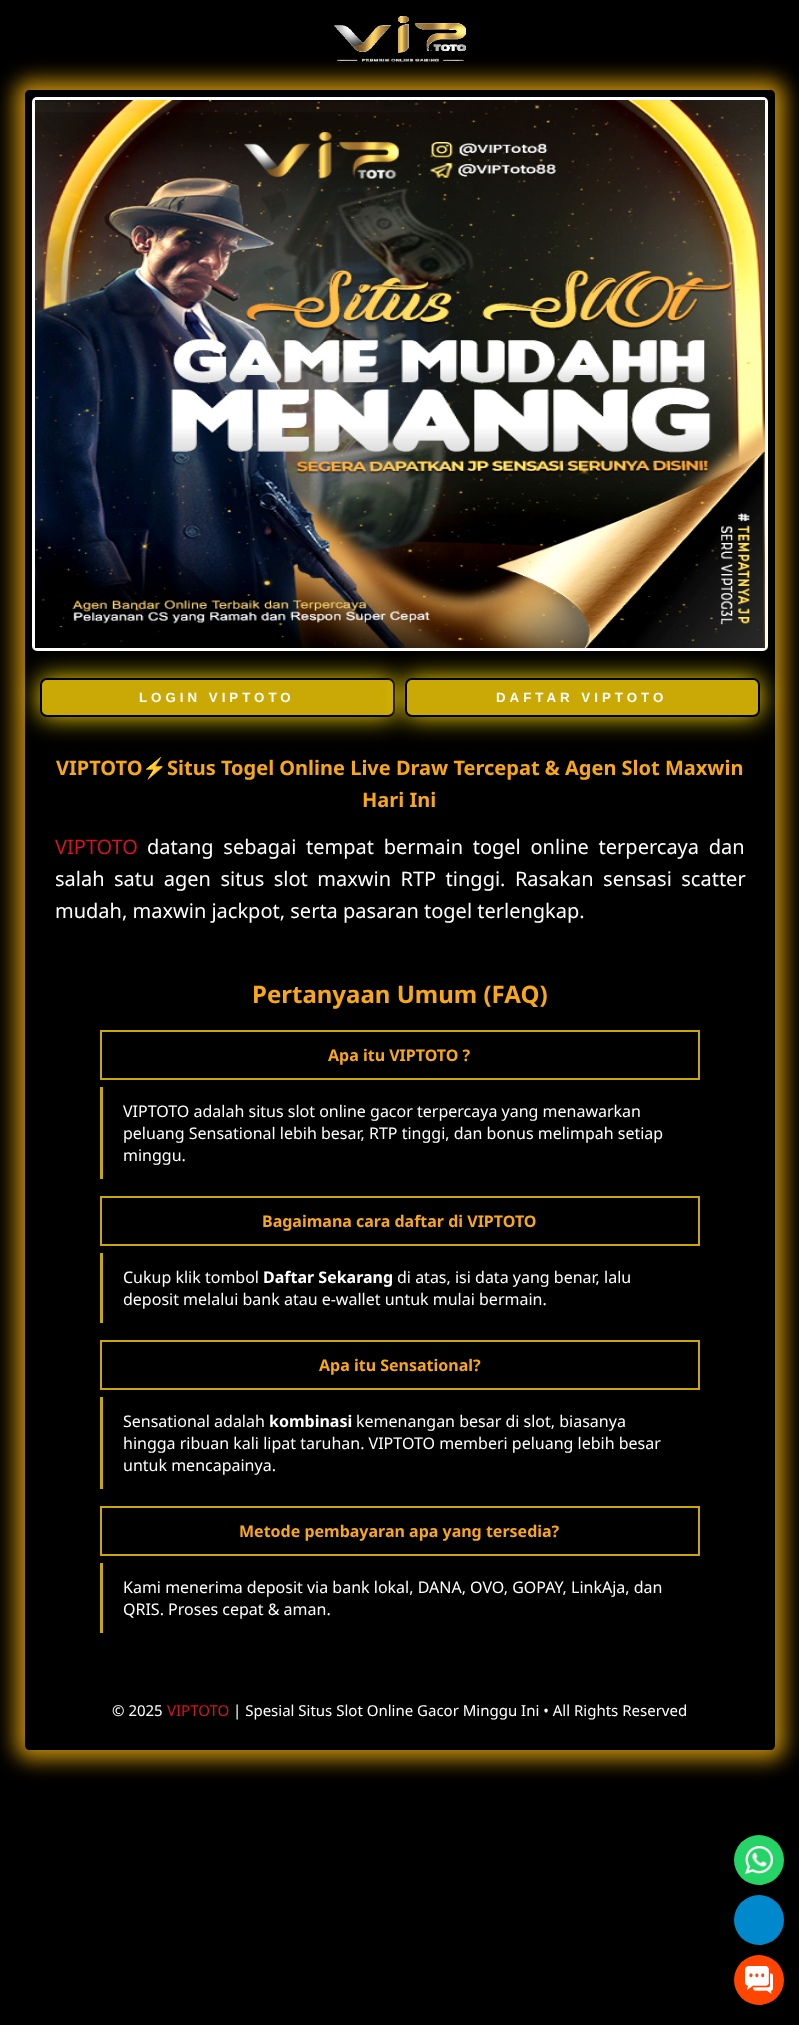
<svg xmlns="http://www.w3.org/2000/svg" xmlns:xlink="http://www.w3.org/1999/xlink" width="799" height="2025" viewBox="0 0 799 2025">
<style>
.cls-1{font:bold 13.3px Liberation Sans;letter-spacing:4px;fill:#ffffff}
.cls-2{font:bold 20px Noto Sans;fill:#f8a817}
.cls-3{font:bold 20px Noto Color Emoji;fill:#f8a817}
.cls-4{font:20px Noto Sans;fill:#d71322}
.cls-5{font:20px Noto Sans;fill:#ffffff}
.cls-6{font:bold 24px Noto Sans;fill:#f8a817}
.cls-7{font:bold 16px Noto Sans;fill:#f8a817}
.cls-8{font:16px Noto Sans;fill:#ffffff}
.cls-9{font:bold 16px Noto Sans;fill:#ffffff}
.cls-10{font:15px Noto Sans;fill:#ffffff}
.cls-11{font:15px Noto Sans;fill:#d71322}
</style>
<defs>
<clipPath id="clip1"><path d="M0 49H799V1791H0ZM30 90H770C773 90 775 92 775 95V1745C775 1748 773 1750 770 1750H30C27 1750 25 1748 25 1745V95C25 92 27 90 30 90Z" clip-rule="evenodd"/></clipPath>
</defs>
<rect width="100%" height="100%" fill="#000000"/>
<g clip-path="url(#clip1)">
<rect fill="#b8860b" filter="blur(10px)" x="15" y="80" width="770" height="1680" rx="15"/>
</g>
<image xlink:href="image0.png" x="334" y="16" width="132" height="46"/>
<rect fill="none" stroke="#fdfdfd" stroke-width="3" x="33.5" y="98.5" width="733" height="551" rx="3.5"/>
<image xlink:href="image1.png" x="35" y="100" width="730" height="548"/>
<rect fill="#ffdd00" filter="blur(12.5px)" x="40" y="678" width="355" height="39" rx="7"/>
<rect fill="#caa906" stroke="#000000" stroke-width="2" x="41" y="679" width="353" height="37" rx="6"/>
<rect fill="#ffdd00" filter="blur(12.5px)" x="405" y="678" width="355" height="39" rx="7"/>
<rect fill="#caa906" stroke="#000000" stroke-width="2" x="406" y="679" width="353" height="37" rx="6"/>
<rect fill="none" stroke="#caa906" stroke-width="2" x="101" y="1031" width="598" height="48"/>
<rect fill="#caa906" x="100" y="1087" width="3" height="92"/>
<rect fill="none" stroke="#caa906" stroke-width="2" x="101" y="1197" width="598" height="48"/>
<rect fill="#caa906" x="100" y="1253" width="3" height="70"/>
<rect fill="none" stroke="#caa906" stroke-width="2" x="101" y="1341" width="598" height="48"/>
<rect fill="#caa906" x="100" y="1397" width="3" height="92"/>
<rect fill="none" stroke="#caa906" stroke-width="2" x="101" y="1507" width="598" height="48"/>
<rect fill="#caa906" x="100" y="1563" width="3" height="70"/>
<circle fill="#25d366" cx="759" cy="1860" r="25"/>
<image xlink:href="image2.png" x="745" y="1846" width="28" height="28"/>
<circle fill="#0088cc" cx="759" cy="1920" r="25"/>
<circle fill="#ff4500" cx="759" cy="1980" r="25"/>
<image xlink:href="image3.png" x="745" y="1966" width="28" height="28"/>
<text class="cls-1" x="139" y="702">LOGIN VIPTOTO</text>
<text class="cls-1" x="496" y="702">DAFTAR VIPTOTO</text>
<text class="cls-2" x="56" y="775">VIPTOTO</text>
<text class="cls-3" x="142" y="775">⚡️</text>
<text class="cls-2" x="167" y="775">Situs Togel Online Live Draw Tercepat &amp; Agen Slot Maxwin</text>
<text class="cls-2" x="362" y="807">Hari Ini</text>
<text class="cls-4" x="55" y="854">VIPTOTO</text>
<text class="cls-5" x="147" y="854" word-spacing="4.5">datang sebagai tempat bermain togel online terpercaya dan</text>
<text class="cls-5"><tspan x="55" y="886" word-spacing="4.25">salah satu agen situs slot maxwin RTP tinggi. Rasakan sensasi scatter</tspan><tspan x="55" y="918">mudah, maxwin jackpot, serta pasaran togel terlengkap.</tspan></text>
<text class="cls-6" x="252" y="1003">Pertanyaan Umum (FAQ)</text>
<text class="cls-7" x="328" y="1061">Apa itu VIPTOTO ?</text>
<text class="cls-8"><tspan x="123" y="1117">VIPTOTO adalah situs slot online gacor terpercaya yang menawarkan</tspan><tspan x="123" y="1139">peluang Sensational lebih besar, RTP tinggi, dan bonus melimpah setiap</tspan><tspan x="123" y="1161">minggu.</tspan></text>
<text class="cls-7" x="262" y="1227">Bagaimana cara daftar di VIPTOTO</text>
<text class="cls-8" x="123" y="1283">Cukup klik tombol</text>
<text class="cls-9" x="263" y="1283">Daftar Sekarang</text>
<text class="cls-8" x="397" y="1283">di atas, isi data yang benar, lalu</text>
<text class="cls-8" x="123" y="1305">deposit melalui bank atau e-wallet untuk mulai bermain.</text>
<text class="cls-7" x="319" y="1371">Apa itu Sensational?</text>
<text class="cls-8" x="123" y="1427">Sensational adalah</text>
<text class="cls-9" x="269" y="1427">kombinasi</text>
<text class="cls-8" x="356" y="1427">kemenangan besar di slot, biasanya</text>
<text class="cls-8"><tspan x="123" y="1449">hingga ribuan kali lipat taruhan. VIPTOTO memberi peluang lebih besar</tspan><tspan x="123" y="1471">untuk mencapainya.</tspan></text>
<text class="cls-7" x="239" y="1537">Metode pembayaran apa yang tersedia?</text>
<text class="cls-8"><tspan x="123" y="1593">Kami menerima deposit via bank lokal, DANA, OVO, GOPAY, LinkAja, dan</tspan><tspan x="123" y="1615">QRIS. Proses cepat &amp; aman.</tspan></text>
<text class="cls-10" x="112" y="1716">© 2025</text>
<text class="cls-11" x="167" y="1716">VIPTOTO</text>
<text class="cls-10" x="233" y="1716">| Spesial Situs Slot Online Gacor Minggu Ini • All Rights Reserved</text>
</svg>
